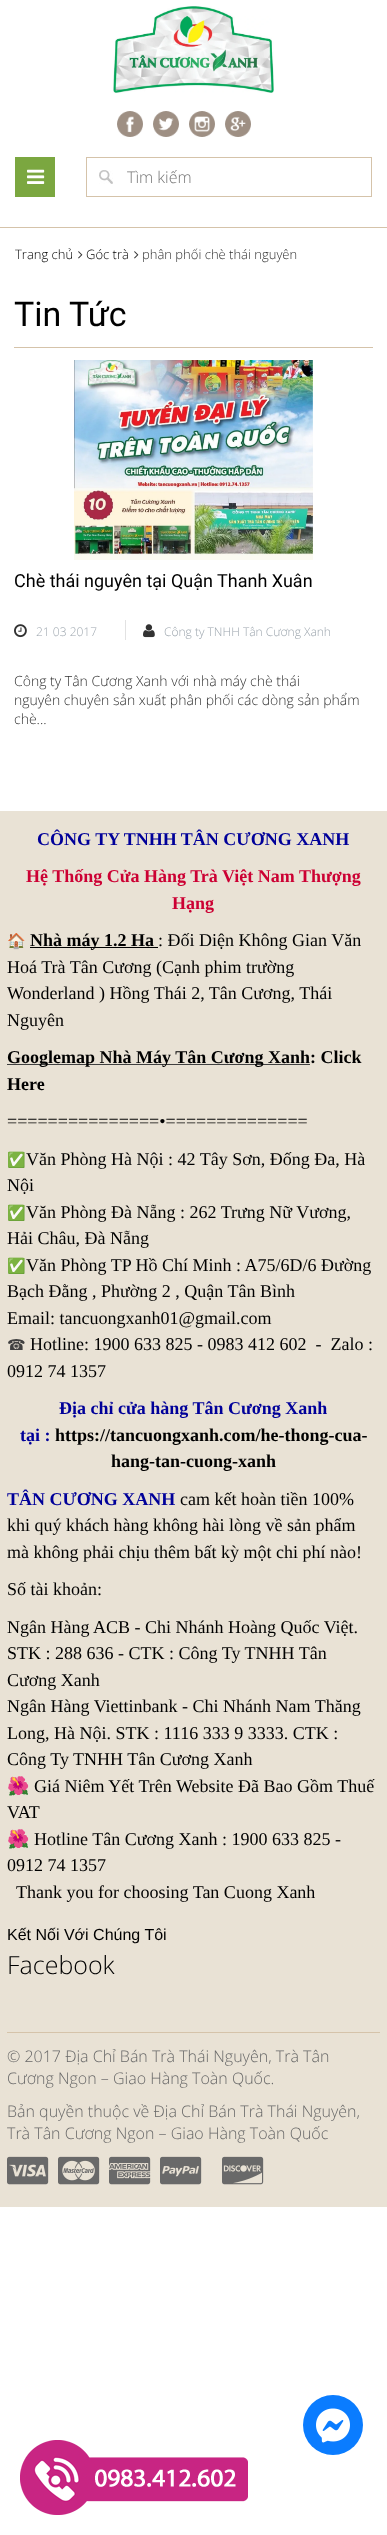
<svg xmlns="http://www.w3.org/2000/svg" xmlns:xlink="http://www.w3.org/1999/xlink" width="387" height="2535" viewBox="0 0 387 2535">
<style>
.cls-1{font:300 16px Open Sans;fill:#757575}
.cls-2{font:300 13px Open Sans;fill:#000000}
.cls-3{font:300 13px Open Sans;fill:#323232}
.cls-4{font:34px Roboto;fill:#000000}
.cls-5{font:18px Roboto;fill:#000000}
.cls-6{font:300 12px Open Sans;fill:#9da6ae}
.cls-7{font:300 14px Open Sans;fill:#323232}
.cls-8{font:bold 18px Liberation Serif;fill:#000099}
.cls-9{font:bold 18px Liberation Serif;fill:#cc0033}
.cls-10{font:15px Noto Color Emoji;fill:#404040}
.cls-11{font:bold 18px Liberation Serif;fill:#000000}
.cls-12{font:18px Liberation Serif;fill:#000000}
.cls-13{font:15px DejaVu Sans;fill:#404040}
.cls-14{font:18px Noto Color Emoji;fill:#000000}
.cls-15{font:16px Liberation Sans;fill:#000000}
.cls-16{font:300 25px Open Sans;fill:#000000}
.cls-17{font:300 16px Open Sans;fill:#696969}
</style>
<rect width="100%" height="100%" fill="#ffffff"/>
<image xlink:href="image0.png" x="113" y="6" width="161" height="87"/>
<image xlink:href="image1.png" x="117" y="111" width="26" height="26"/>
<image xlink:href="image2.png" x="153" y="111" width="26" height="26"/>
<image xlink:href="image3.png" x="189" y="111" width="26" height="26"/>
<image xlink:href="image4.png" x="225" y="111" width="26" height="26"/>
<rect fill="#d5c3aa" x="0" y="227" width="387" height="1"/>
<rect fill="#7ba740" x="15" y="157" width="40" height="40"/>
<image xlink:href="image5.png" x="27" y="169" width="18" height="15"/>
<image xlink:href="image6.png" x="99" y="170" width="14" height="14"/>
<rect fill="none" stroke="#d5c3aa" x="86.5" y="157.5" width="285" height="39"/>
<image xlink:href="image7.png" x="78" y="251" width="5" height="8"/>
<image xlink:href="image7.png" x="134" y="251" width="5" height="8"/>
<rect fill="#d5c3aa" x="14" y="347" width="359" height="1"/>
<image xlink:href="image8.png" x="74" y="360" width="239" height="200"/>
<rect fill="#e2e2e2" x="125" y="620" width="1" height="20"/>
<image xlink:href="image9.png" x="14" y="624" width="13" height="14"/>
<image xlink:href="image10.png" x="143" y="624" width="12" height="14"/>
<rect fill="#e9e2d5" x="0" y="811" width="387" height="1396"/>
<rect fill="#000000" x="30" y="947" width="128" height="1"/>
<rect fill="#404040" x="7" y="1064" width="303" height="1"/>
<rect fill="#d5c3aa" x="7" y="2032" width="373" height="1"/>
<image xlink:href="image11.png" x="7" y="2156" width="42" height="29"/>
<image xlink:href="image12.png" x="58" y="2156" width="42" height="29"/>
<image xlink:href="image13.png" x="109" y="2156" width="42" height="29"/>
<image xlink:href="image14.png" x="160" y="2156" width="42" height="29"/>
<image xlink:href="image15.png" x="222" y="2156" width="42" height="29"/>
<circle fill="#0a7cff" cx="333" cy="2425" r="30"/>
<image xlink:href="image16.png" x="316" y="2408" width="34" height="35"/>
<image xlink:href="image17.png" x="20" y="2440" width="228" height="75"/>
<text class="cls-1" x="127" y="183">Tìm kiếm</text>
<text class="cls-2" x="15" y="259">Trang chủ</text>
<text class="cls-2" x="86" y="259">Góc trà</text>
<text class="cls-3" x="142" y="259">phân phối chè thái nguyên</text>
<text class="cls-4" x="14" y="326">Tin Tức</text>
<text class="cls-5" x="14" y="587">Chè thái nguyên tại Quận Thanh Xuân</text>
<text class="cls-6" x="36" y="636">21 03 2017</text>
<text class="cls-6" x="164" y="636">Công ty TNHH Tân Cương Xanh</text>
<text class="cls-7"><tspan x="14" y="686">Công ty Tân Cương Xanh với nhà máy chè thái</tspan><tspan x="14" y="705">nguyên chuyên sản xuất phân phối các dòng sản phẩm</tspan><tspan x="14" y="724">chè...</tspan></text>
<text class="cls-8" x="37" y="845">CÔNG TY TNHH TÂN CƯƠNG XANH</text>
<text class="cls-9" x="26" y="882">Hệ Thống Cửa Hàng Trà Việt Nam Thượng</text>
<text class="cls-9" x="172" y="909">Hạng</text>
<text class="cls-10" x="7" y="946">🏠</text>
<text class="cls-11" x="30" y="946">Nhà máy 1.2 Ha</text>
<text class="cls-12" x="158" y="946">: Đối Diện Không Gian Văn</text>
<text class="cls-12"><tspan x="7" y="973">Hoá Trà Tân Cương (Cạnh phim trường</tspan><tspan x="7" y="999">Wonderland ) Hồng Thái 2, Tân Cương, Thái</tspan><tspan x="7" y="1026">Nguyên</tspan></text>
<text class="cls-11"><tspan x="7" y="1063">Googlemap Nhà Máy Tân Cương Xanh: Click</tspan><tspan x="7" y="1090">Here</tspan></text>
<text class="cls-12" x="7" y="1127">===============•==============</text>
<text class="cls-10" x="7" y="1165">✅</text>
<text class="cls-12" x="26" y="1165">Văn Phòng Hà Nội : 42 Tây Sơn, Đống Đa, Hà</text>
<text class="cls-12" x="7" y="1191">Nội</text>
<text class="cls-10" x="7" y="1218">✅</text>
<text class="cls-12" x="26" y="1218">Văn Phòng Đà Nẵng : 262 Trưng Nữ Vương,</text>
<text class="cls-12" x="7" y="1244">Hải Châu, Đà Nẵng</text>
<text class="cls-10" x="7" y="1271">✅</text>
<text class="cls-12" x="26" y="1271">Văn Phòng TP Hồ Chí Minh : A75/6D/6 Đường</text>
<text class="cls-12"><tspan x="7" y="1297">Bạch Đằng , Phường 2 , Quận Tân Bình</tspan><tspan x="7" y="1324">Email: tancuongxanh01@gmail.com</tspan></text>
<text class="cls-13" x="7" y="1350">☎</text>
<text class="cls-12" xml:space="preserve" x="30" y="1350">Hotline: 1900 633 825 - 0983 412 602  -  Zalo :</text>
<text class="cls-12" x="7" y="1377">0912 74 1357</text>
<text class="cls-8" x="59" y="1414">Địa chỉ cửa hàng Tân Cương Xanh</text>
<text class="cls-8" x="20" y="1441">tại :</text>
<text class="cls-11" x="55" y="1441">https://tancuongxanh.com/he-thong-cua-</text>
<text class="cls-11" x="111" y="1467">hang-tan-cuong-xanh</text>
<text class="cls-8" x="7" y="1505">TÂN CƯƠNG XANH</text>
<text class="cls-12" x="180" y="1505">cam kết hoàn tiền 100%</text>
<text class="cls-12"><tspan x="7" y="1531">khi quý khách hàng không hài lòng về sản phẩm</tspan><tspan x="7" y="1558">mà không phải chịu thêm bất kỳ một chi phí nào!</tspan></text>
<text class="cls-12" x="7" y="1595">Số tài khoản:</text>
<text class="cls-12"><tspan x="7" y="1633">Ngân Hàng ACB - Chi Nhánh Hoàng Quốc Việt.</tspan><tspan x="7" y="1659">STK : 288 636 - CTK : Công Ty TNHH Tân</tspan><tspan x="7" y="1686">Cương Xanh</tspan><tspan x="7" y="1712">Ngân Hàng Viettinbank - Chi Nhánh Nam Thăng</tspan><tspan x="7" y="1739">Long, Hà Nội. STK : 1116 333 9 3333. CTK :</tspan><tspan x="7" y="1765">Công Ty TNHH Tân Cương Xanh</tspan></text>
<text class="cls-14" x="7" y="1792">🌺</text>
<text class="cls-12" x="34" y="1792">Giá Niêm Yết Trên Website Đã Bao Gồm Thuế</text>
<text class="cls-12" x="7" y="1818">VAT</text>
<text class="cls-14" x="7" y="1845">🌺</text>
<text class="cls-12" x="34" y="1845">Hotline Tân Cương Xanh : 1900 633 825 -</text>
<text class="cls-12" x="7" y="1871">0912 74 1357</text>
<text class="cls-12" x="16" y="1898">Thank you for choosing Tan Cuong Xanh</text>
<text class="cls-15" x="7" y="1940">Kết Nối Với Chúng Tôi</text>
<text class="cls-16" x="7" y="1974">Facebook</text>
<text class="cls-17"><tspan x="7" y="2062">© 2017 Địa Chỉ Bán Trà Thái Nguyên, Trà Tân</tspan><tspan x="7" y="2084">Cương Ngon – Giao Hàng Toàn Quốc.</tspan></text>
<text class="cls-17"><tspan x="7" y="2117">Bản quyền thuộc về Địa Chỉ Bán Trà Thái Nguyên,</tspan><tspan x="7" y="2139">Trà Tân Cương Ngon – Giao Hàng Toàn Quốc</tspan></text>
</svg>
